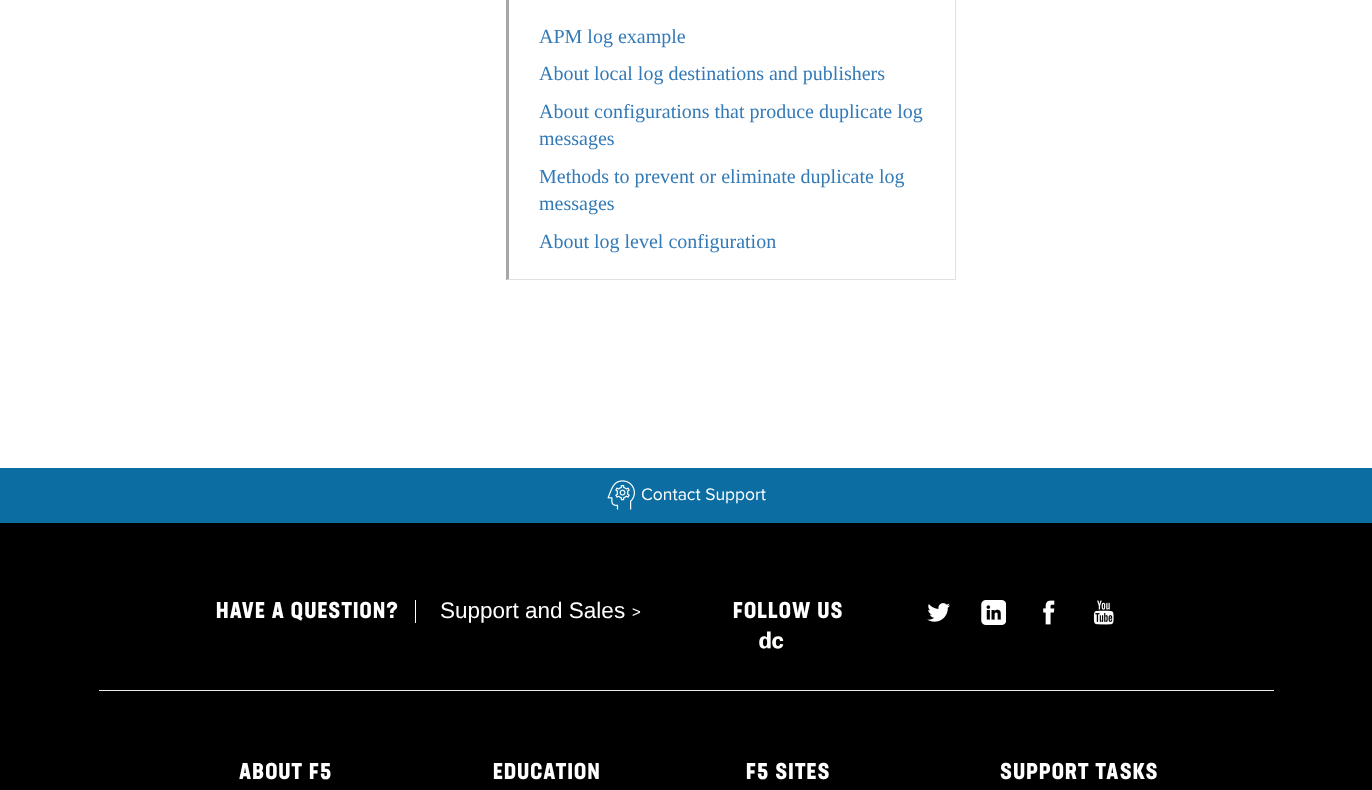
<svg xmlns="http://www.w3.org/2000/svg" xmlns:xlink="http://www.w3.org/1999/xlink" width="1372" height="790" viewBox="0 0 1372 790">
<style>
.cls-1{font:20px Liberation Serif;fill:#337ab7}
.cls-2{font:17.5px Proxima Nova;fill:#ffffff}
.cls-3{font:bold 22.5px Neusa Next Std;letter-spacing:1.25px;fill:#ffffff}
.cls-4{font:22.5px Liberation Sans;fill:#ffffff}
.cls-5{font:15px Liberation Sans;fill:#ffffff}
</style>
<rect width="100%" height="100%" fill="#ffffff"/>
<rect fill="#e1e1e1" x="955" y="0" width="1" height="280"/>
<path fill="#e1e1e1" d="M956 280H506L509 279H955Z"/>
<path fill="#a6a6a6" d="M506 280V-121L509-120V279Z"/>
<rect fill="#0b6da1" x="0" y="468" width="1372" height="55"/>
<image xlink:href="image0.png" x="607" y="480" width="28" height="30"/>
<rect fill="#000000" x="0" y="523" width="1372" height="267"/>
<rect fill="#ffffff" x="415" y="600" width="1" height="23"/>
<image xlink:href="image1.png" x="927" y="603" width="23" height="19"/>
<image xlink:href="image2.png" x="981" y="600" width="25" height="25"/>
<image xlink:href="image3.png" x="1043" y="600" width="12" height="25"/>
<image xlink:href="image4.png" x="1093" y="600" width="21" height="25"/>
<image xlink:href="image5.png" x="759" y="631" width="25" height="18"/>
<rect fill="#eeeeee" x="99" y="690" width="1175" height="1"/>
<text class="cls-1"><tspan x="539" y="43">APM log example</tspan><tspan x="539" y="80">About local log destinations and publishers</tspan><tspan x="539" y="118">About configurations that produce duplicate log</tspan><tspan x="539" y="145">messages</tspan><tspan x="539" y="183">Methods to prevent or eliminate duplicate log</tspan><tspan x="539" y="210">messages</tspan><tspan x="539" y="248">About log level configuration</tspan></text>
<text class="cls-2" x="641" y="500">Contact Support</text>
<text class="cls-3" x="216" y="618">HAVE A QUESTION?</text>
<text class="cls-4" x="440" y="618">Support and Sales</text>
<text class="cls-5" x="632" y="617">&gt;</text>
<text class="cls-3" x="733" y="618">FOLLOW US</text>
<text class="cls-3" x="239" y="779">ABOUT F5</text>
<text class="cls-3" x="493" y="779">EDUCATION</text>
<text class="cls-3" x="746" y="779">F5 SITES</text>
<text class="cls-3" x="1000" y="779">SUPPORT TASKS</text>
</svg>
